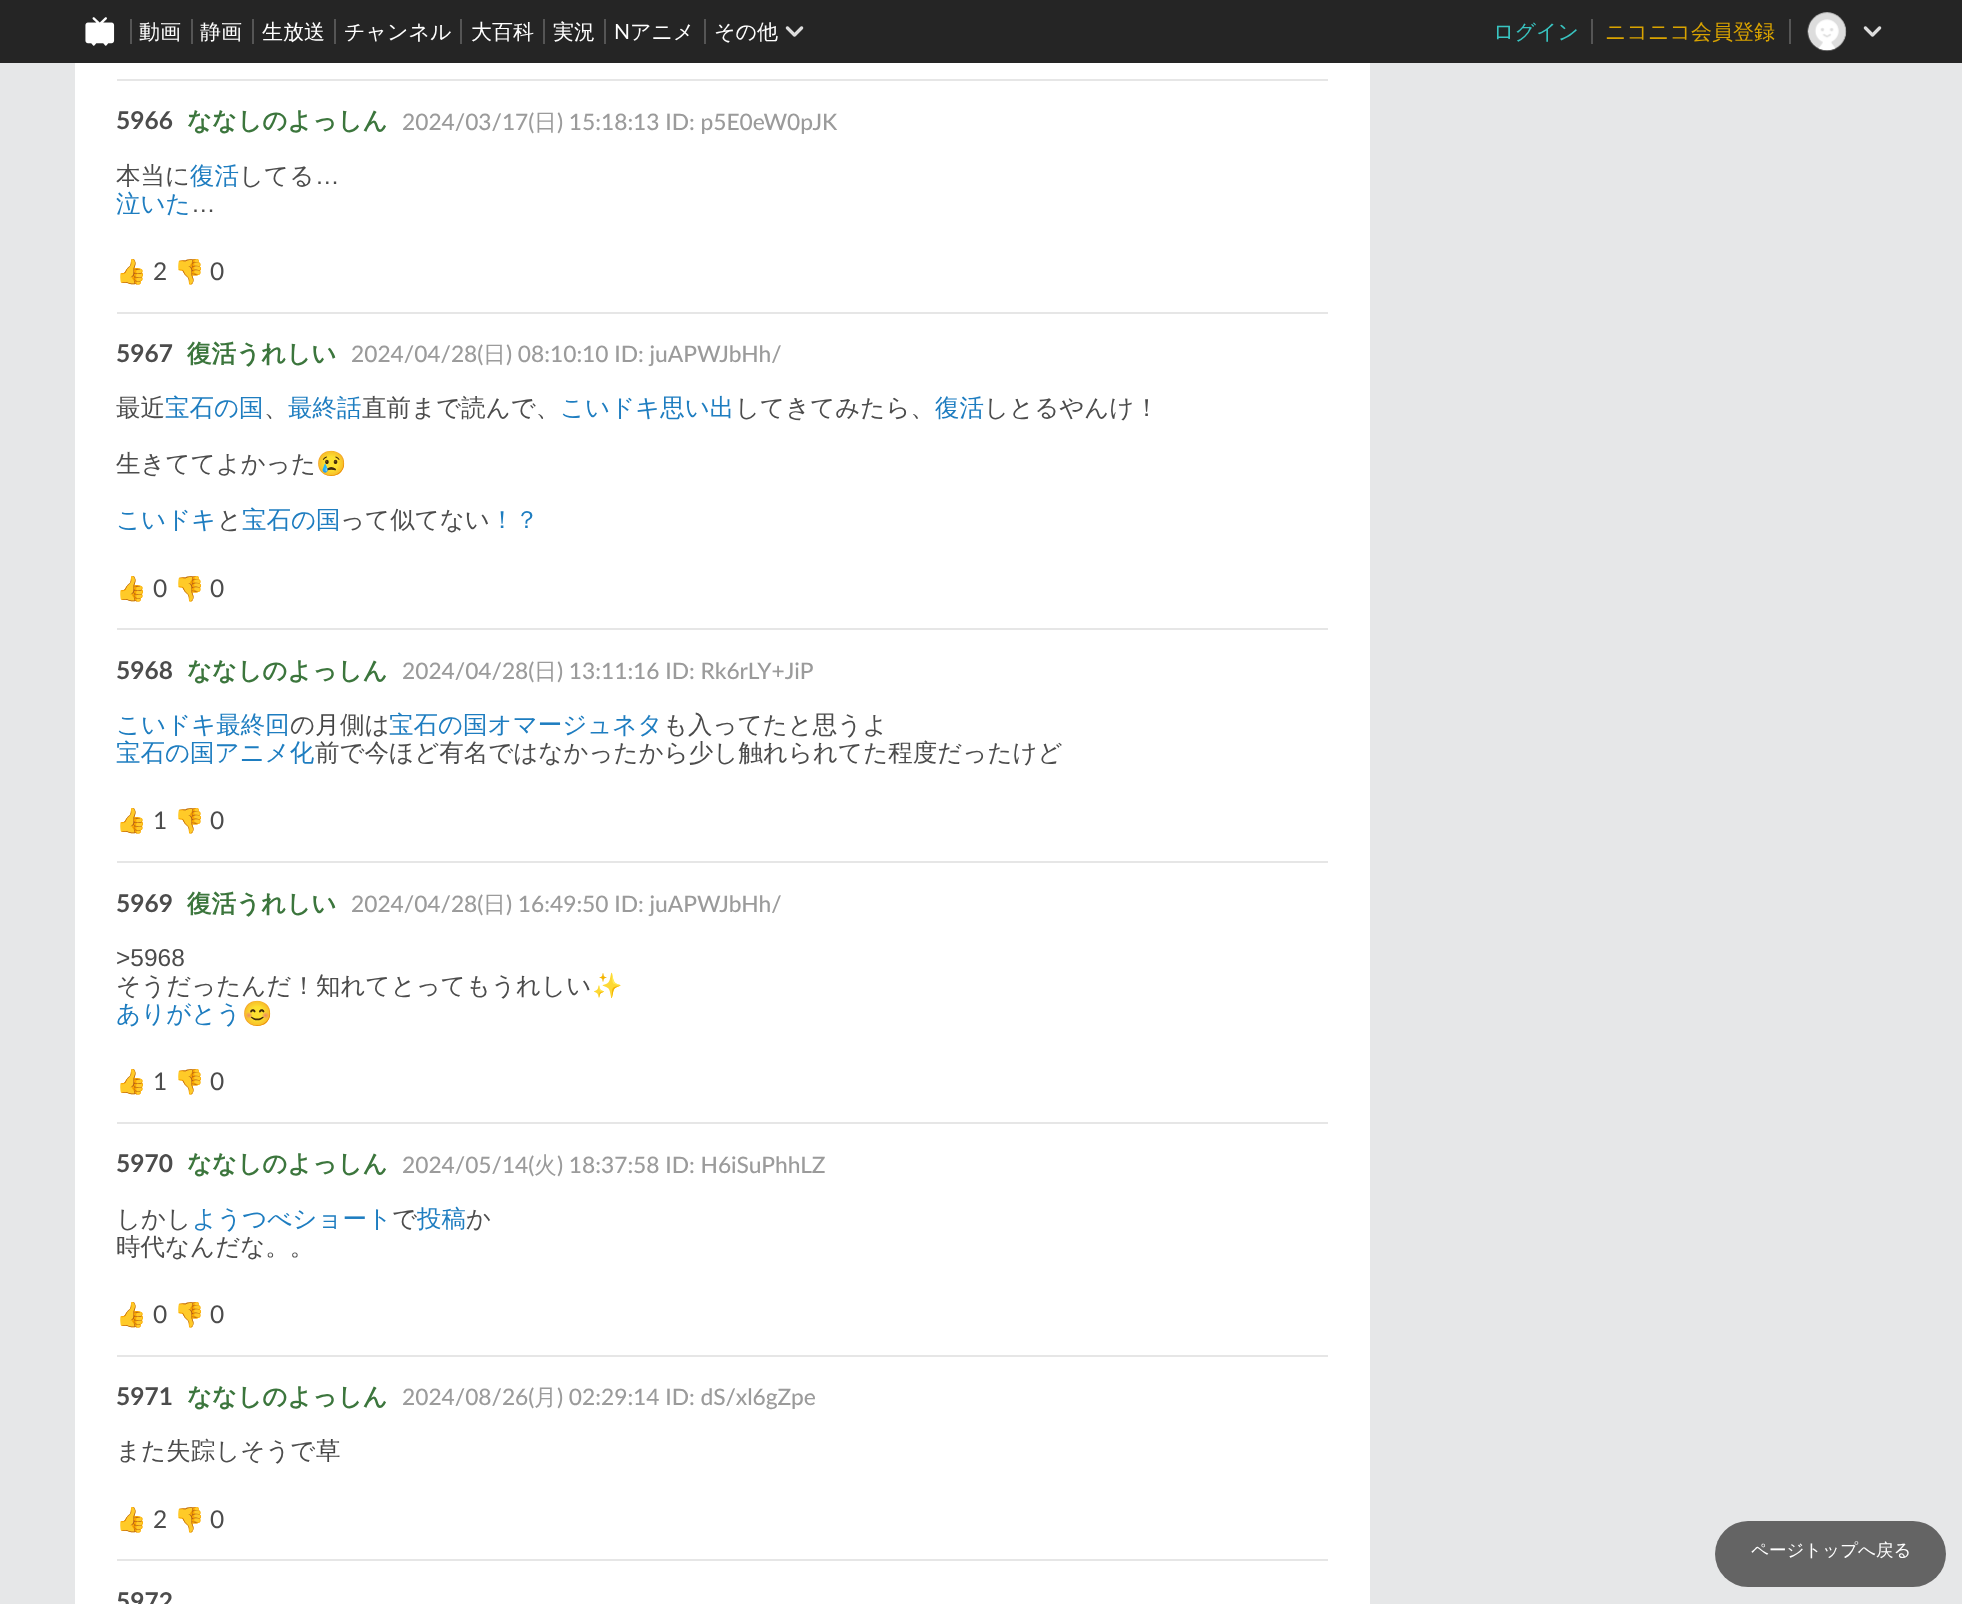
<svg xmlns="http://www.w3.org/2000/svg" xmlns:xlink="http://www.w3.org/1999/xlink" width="1962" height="1604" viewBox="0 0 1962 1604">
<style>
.cls-1{font:500 21px WenQuanYi Zen Hei;fill:#ffffff}
.cls-2{font:21px Lato;fill:#ffffff}
.cls-3{font:500 21px WenQuanYi Zen Hei;fill:#39c4c1}
.cls-4{font:500 21px WenQuanYi Zen Hei;fill:#d9a300}
.cls-5{font:bold 24.5px Lato;fill:#4c4c4c}
.cls-6{font:bold 24.5px WenQuanYi Zen Hei;fill:#3c763d}
.cls-7{font:500 22.75px Lato;fill:#9b9b9b}
.cls-8{font:500 22.75px WenQuanYi Zen Hei;fill:#9b9b9b}
.cls-9{font:500 24.5px WenQuanYi Zen Hei;fill:#4c4c4c}
.cls-10{font:500 24.5px WenQuanYi Zen Hei;fill:#1e7dc0}
.cls-11{font:24.5px Liberation Sans;fill:#4c4c4c}
.cls-12{font:24.5px Noto Color Emoji;fill:#4c4c4c}
.cls-13{font:24.5px Lato;fill:#4c4c4c}
.cls-14{font:500 24.5px WenQuanYi Zen Hei;fill:#444444}
.cls-15{font:500 17.5px WenQuanYi Zen Hei;fill:#ffffff}
</style>
<rect width="100%" height="100%" fill="#e6e7e8"/>
<rect fill="#252525" x="0" y="0" width="1962" height="63"/>
<image xlink:href="image0.png" x="85" y="17" width="30" height="29"/>
<rect fill="#555555" x="130" y="19" width="2" height="25"/>
<rect fill="#555555" x="191" y="19" width="2" height="25"/>
<rect fill="#555555" x="252" y="19" width="2" height="25"/>
<rect fill="#555555" x="334" y="19" width="2" height="25"/>
<rect fill="#555555" x="460" y="19" width="2" height="25"/>
<rect fill="#555555" x="543" y="19" width="2" height="25"/>
<rect fill="#555555" x="604" y="19" width="2" height="25"/>
<rect fill="#555555" x="704" y="19" width="2" height="25"/>
<image xlink:href="image1.png" x="785" y="26" width="19" height="11"/>
<rect fill="#555555" x="1591" y="19" width="2" height="25"/>
<rect fill="#555555" x="1789" y="19" width="2" height="25"/>
<image xlink:href="image2.png" x="1807" y="12" width="40" height="40"/>
<image xlink:href="image1.png" x="1863" y="26" width="19" height="11"/>
<rect fill="#ffffff" x="75" y="63" width="1295" height="1541"/>
<rect fill="#e6e6e6" x="117" y="79" width="1211" height="2"/>
<rect fill="#e6e6e6" x="117" y="312" width="1211" height="2"/>
<rect fill="#e6e6e6" x="117" y="628" width="1211" height="2"/>
<rect fill="#e6e6e6" x="117" y="861" width="1211" height="2"/>
<rect fill="#e6e6e6" x="117" y="1122" width="1211" height="2"/>
<rect fill="#e6e6e6" x="117" y="1355" width="1211" height="2"/>
<rect fill="#e6e6e6" x="117" y="1559" width="1211" height="2"/>
<rect fill="#646464" x="1715" y="1521" width="231" height="66" rx="33"/>
<text class="cls-1" x="139" y="39">動画</text>
<text class="cls-1" x="200" y="39">静画</text>
<text class="cls-1" x="262" y="39">生放送</text>
<text class="cls-1" x="344" y="39">チャンネル</text>
<text class="cls-1" x="471" y="39">大百科</text>
<text class="cls-1" x="553" y="39">実況</text>
<text class="cls-2" x="614" y="39">N</text>
<text class="cls-1" x="630" y="39">アニメ</text>
<text class="cls-1" x="714" y="39">その他</text>
<text class="cls-3" x="1493" y="39">ログイン</text>
<text class="cls-4" x="1605" y="39">ニコニコ会員登録</text>
<text class="cls-5" x="116" y="129">5966</text>
<text class="cls-6" x="187" y="129">ななしのよっしん</text>
<text class="cls-7" x="402" y="130">2024/03/17(</text>
<text class="cls-8" x="534" y="130">日</text>
<text class="cls-7" x="557" y="130">) 15:18:13 ID: p5E0eW0pJK</text>
<text class="cls-9" x="116" y="184">本当に</text>
<text class="cls-10" x="190" y="184">復活</text>
<text class="cls-9" x="239" y="184">してる</text>
<text class="cls-11" x="315" y="184">…</text>
<text class="cls-10" x="116" y="212">泣いた</text>
<text class="cls-11" x="191" y="212">…</text>
<text class="cls-12" x="116" y="280">👍</text>
<text class="cls-13" x="153" y="280">2</text>
<text class="cls-12" x="174" y="280">👎</text>
<text class="cls-13" x="210" y="280">0</text>
<text class="cls-5" x="116" y="362">5967</text>
<text class="cls-6" x="187" y="362">復活うれしい</text>
<text class="cls-7" x="351" y="362">2024/04/28(</text>
<text class="cls-8" x="483" y="362">日</text>
<text class="cls-7" x="506" y="362">) 08:10:10 ID: juAPWJbHh/</text>
<text class="cls-9" x="116" y="416">最近</text>
<text class="cls-10" x="165" y="416">宝石の国</text>
<text class="cls-9" x="264" y="416">、</text>
<text class="cls-10" x="288" y="416">最終話</text>
<text class="cls-9" x="362" y="416">直前まで読んで、</text>
<text class="cls-10" x="560" y="416">こいドキ思い出</text>
<text class="cls-9" x="735" y="416">してきてみたら、</text>
<text class="cls-10" x="935" y="416">復活</text>
<text class="cls-9" x="984" y="416">しとるやんけ！</text>
<text class="cls-9" x="116" y="472">生きててよかった</text>
<text class="cls-12" x="316" y="472">😢</text>
<text class="cls-10" x="116" y="528">こいドキ</text>
<text class="cls-9" x="217" y="528">と</text>
<text class="cls-10" x="242" y="528">宝石の国</text>
<text class="cls-9" x="340" y="528">って似てない</text>
<text class="cls-10" x="490" y="528">！？</text>
<text class="cls-12" x="116" y="597">👍</text>
<text class="cls-13" x="153" y="597">0</text>
<text class="cls-12" x="174" y="597">👎</text>
<text class="cls-13" x="210" y="597">0</text>
<text class="cls-5" x="116" y="679">5968</text>
<text class="cls-6" x="187" y="679">ななしのよっしん</text>
<text class="cls-7" x="402" y="679">2024/04/28(</text>
<text class="cls-8" x="534" y="679">日</text>
<text class="cls-7" x="557" y="679">) 13:11:16 ID: Rk6rLY+JiP</text>
<text class="cls-10" x="116" y="733">こいドキ最終回</text>
<text class="cls-9" x="290" y="733">の</text>
<text class="cls-14" x="315" y="733">月</text>
<text class="cls-9" x="340" y="733">側は</text>
<text class="cls-10" x="389" y="733">宝石の国オマージュネタ</text>
<text class="cls-9" x="663" y="733">も入ってたと思うよ</text>
<text class="cls-10" x="116" y="761">宝石の国アニメ化</text>
<text class="cls-9" x="315" y="761">前で今ほど有名ではなかったから少し触れられてた程度だったけど</text>
<text class="cls-12" x="116" y="829">👍</text>
<text class="cls-13" x="153" y="829">1</text>
<text class="cls-12" x="174" y="829">👎</text>
<text class="cls-13" x="210" y="829">0</text>
<text class="cls-5" x="116" y="912">5969</text>
<text class="cls-6" x="187" y="912">復活うれしい</text>
<text class="cls-7" x="351" y="912">2024/04/28(</text>
<text class="cls-8" x="483" y="912">日</text>
<text class="cls-7" x="506" y="912">) 16:49:50 ID: juAPWJbHh/</text>
<text class="cls-11" x="116" y="966">&gt;5968</text>
<text class="cls-9" x="116" y="994">そうだったんだ！知れてとってもうれしい</text>
<text class="cls-12" x="592" y="994">✨</text>
<text class="cls-10" x="116" y="1022">ありがとう</text>
<text class="cls-12" x="242" y="1022">😊</text>
<text class="cls-12" x="116" y="1090">👍</text>
<text class="cls-13" x="153" y="1090">1</text>
<text class="cls-12" x="174" y="1090">👎</text>
<text class="cls-13" x="210" y="1090">0</text>
<text class="cls-5" x="116" y="1172">5970</text>
<text class="cls-6" x="187" y="1172">ななしのよっしん</text>
<text class="cls-7" x="402" y="1173">2024/05/14(</text>
<text class="cls-8" x="534" y="1173">火</text>
<text class="cls-7" x="557" y="1173">) 18:37:58 ID: H6iSuPhhLZ</text>
<text class="cls-9" x="116" y="1227">しかし</text>
<text class="cls-10" x="192" y="1227">ようつべショート</text>
<text class="cls-9" x="392" y="1227">で</text>
<text class="cls-10" x="417" y="1227">投稿</text>
<text class="cls-9" x="466" y="1227">か</text>
<text class="cls-9" x="116" y="1255">時代なんだな。。</text>
<text class="cls-12" x="116" y="1323">👍</text>
<text class="cls-13" x="153" y="1323">0</text>
<text class="cls-12" x="174" y="1323">👎</text>
<text class="cls-13" x="210" y="1323">0</text>
<text class="cls-5" x="116" y="1405">5971</text>
<text class="cls-6" x="187" y="1405">ななしのよっしん</text>
<text class="cls-7" x="402" y="1405">2024/08/26(</text>
<text class="cls-8" x="534" y="1405">月</text>
<text class="cls-7" x="557" y="1405">) 02:29:14 ID: dS/xl6gZpe</text>
<text class="cls-9" x="116" y="1459">また失踪しそうで</text>
<text class="cls-14" x="316" y="1459">草</text>
<text class="cls-12" x="116" y="1528">👍</text>
<text class="cls-13" x="153" y="1528">2</text>
<text class="cls-12" x="174" y="1528">👎</text>
<text class="cls-13" x="210" y="1528">0</text>
<text class="cls-5" x="116" y="1610">5972</text>
<text class="cls-15" x="1751" y="1556">ページトップへ戻る</text>
</svg>
